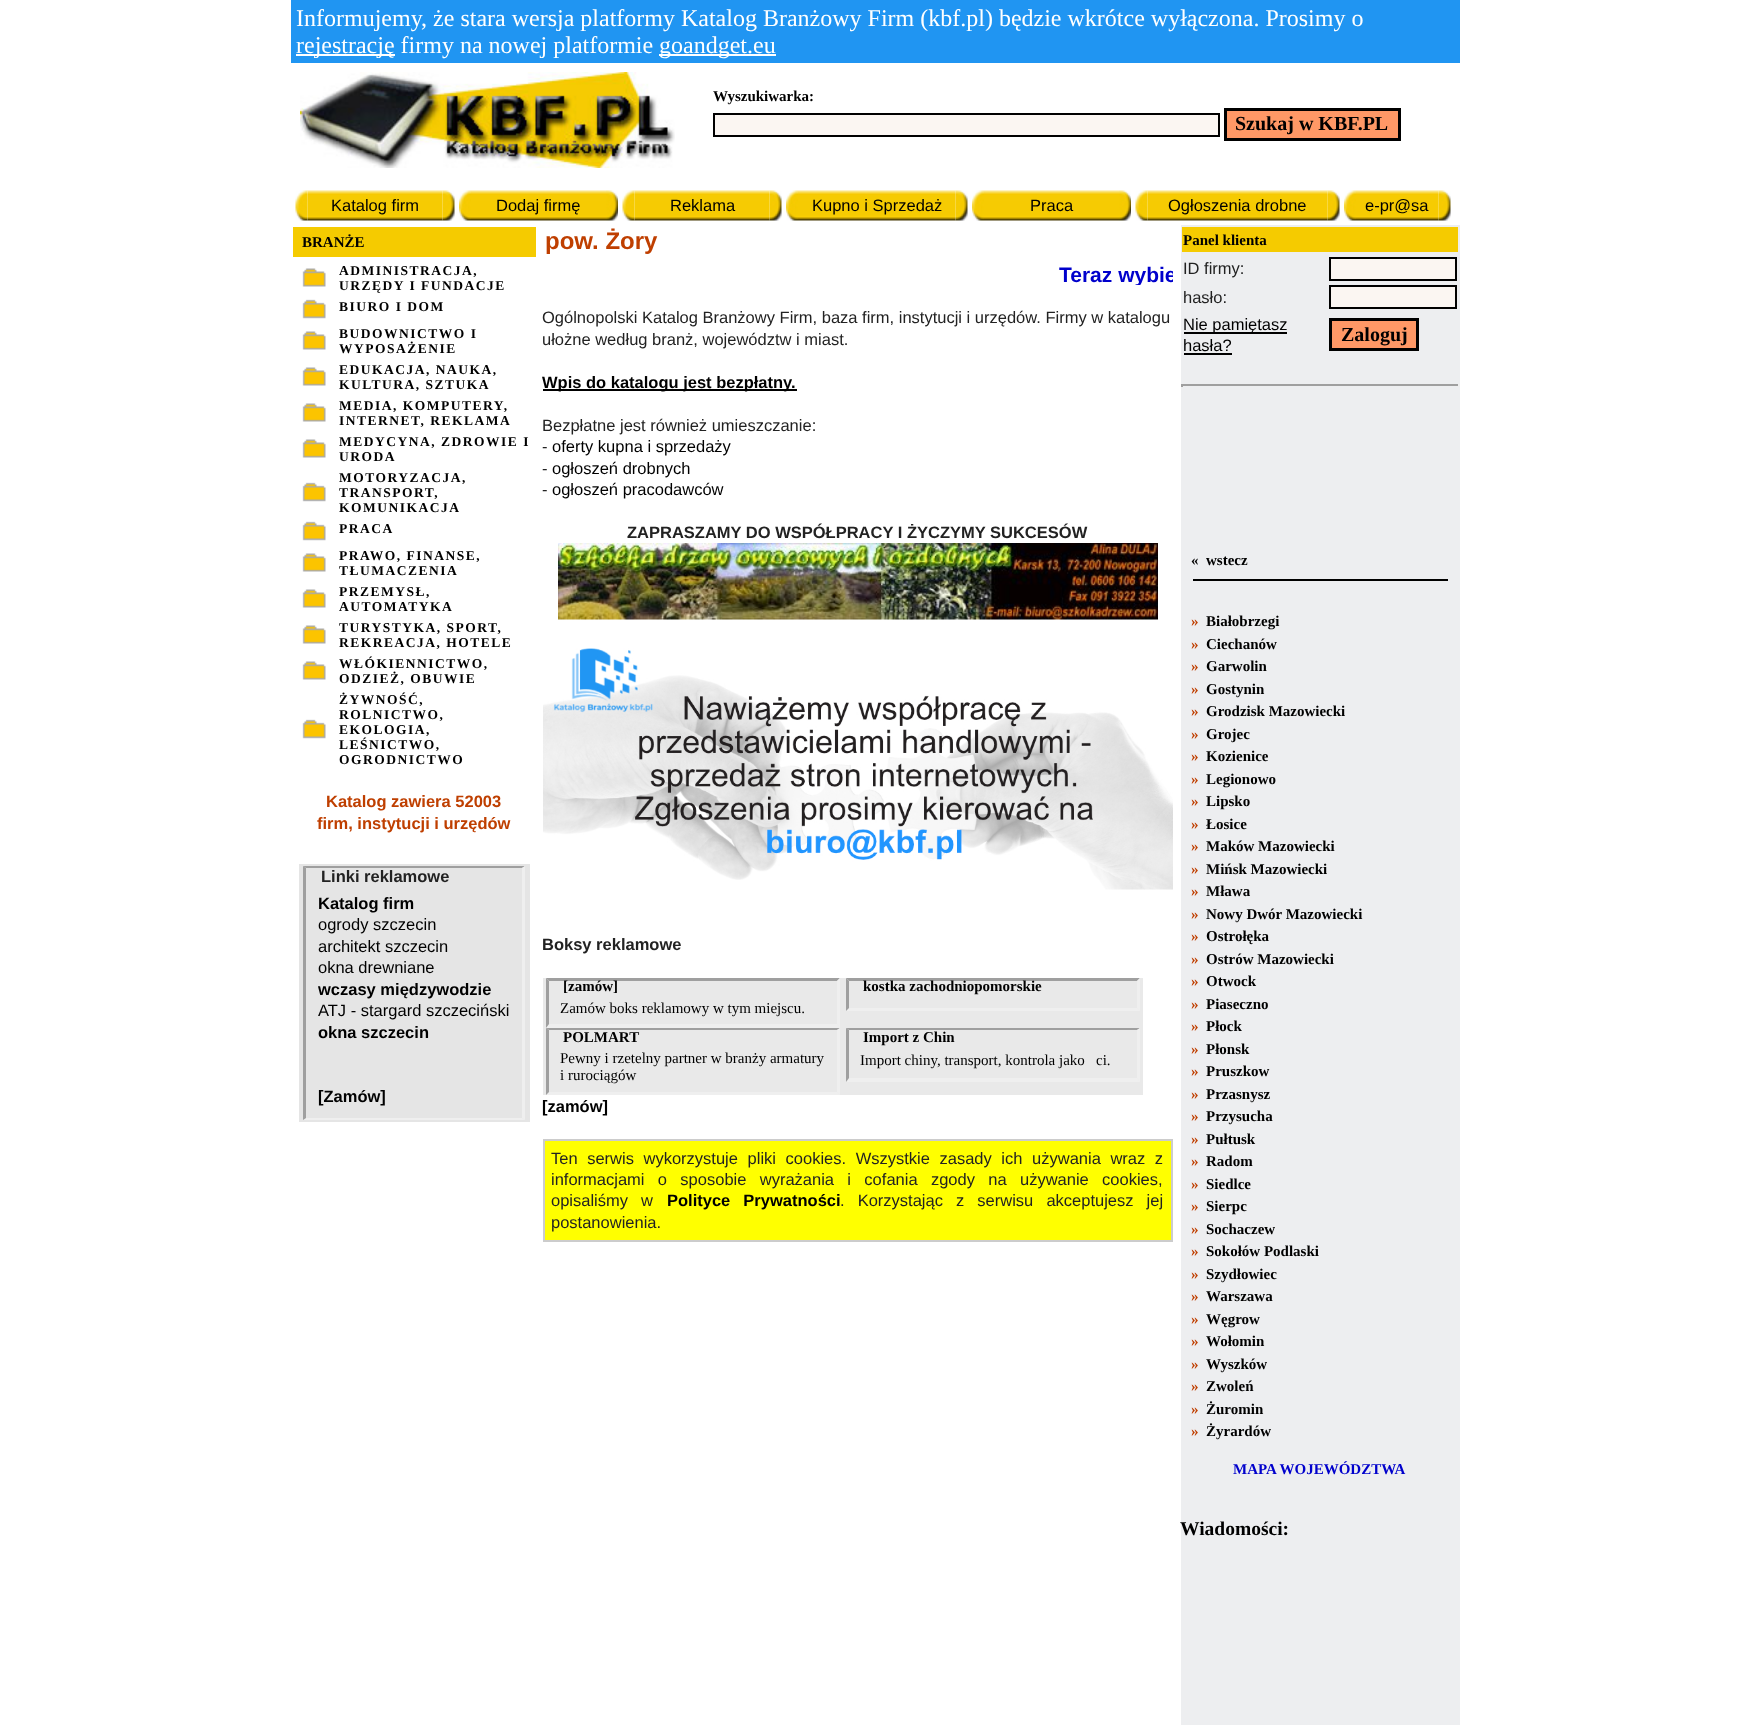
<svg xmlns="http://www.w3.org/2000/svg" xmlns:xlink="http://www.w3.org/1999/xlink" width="1750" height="1725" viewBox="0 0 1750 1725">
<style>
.cls-1{font:24px Liberation Serif;fill:#ffffff}
.cls-2{font:bold 15px Liberation Serif;fill:#000000}
.cls-3{font:bold 20px Liberation Serif;fill:#000000}
.cls-4{font:16.5px Liberation Sans;fill:#000000}
.cls-5{font:bold 24px Liberation Sans;fill:#bf3f00}
.cls-6{font:bold 13.5px Liberation Serif;letter-spacing:1.5px;fill:#000000}
.cls-7{font:bold 16.5px Liberation Sans;fill:#bf3f00}
.cls-8{font:bold 16.5px Liberation Sans;fill:#222222}
.cls-9{font:bold 16.5px Liberation Sans;fill:#000000}
.cls-10{font:bold 21px Liberation Sans;fill:#0000cc}
.cls-11{font:16.5px Liberation Sans;fill:#222222}
.cls-12{font:15px Liberation Serif;fill:#000000}
.cls-13{font:bold 15px Liberation Serif;fill:#bf3f00}
.cls-14{font:bold 15px Liberation Serif;fill:#0000cc}
.cls-15{font:bold 19.5px Liberation Serif;fill:#000000}
</style>
<defs>
<clipPath id="clip1"><rect x="543" y="264" width="630" height="21"/></clipPath>
</defs>
<rect width="100%" height="100%" fill="#ffffff"/>
<rect fill="#2095f2" x="291" y="0" width="1169" height="63"/>
<rect fill="#ffffff" x="296" y="54" width="99" height="2"/>
<rect fill="#ffffff" x="659" y="54" width="117" height="2"/>
<image xlink:href="image0.png" x="300" y="72" width="375" height="96"/>
<rect fill="#fbf6f2" stroke="#000000" stroke-width="2" x="714" y="114" width="505" height="22"/>
<rect fill="#ff9866" stroke="#000000" stroke-width="3" x="1225.5" y="109.5" width="174" height="30"/>
<image xlink:href="image2.png" x="307" y="190" width="136" height="31"/>
<image xlink:href="image1.png" x="295" y="190" width="13" height="31"/>
<image xlink:href="image3.png" x="442" y="190" width="13" height="31"/>
<image xlink:href="image4.png" x="459" y="190" width="12" height="31"/>
<image xlink:href="image5.png" x="471" y="190" width="135" height="31"/>
<image xlink:href="image6.png" x="606" y="190" width="12" height="31"/>
<image xlink:href="image2.png" x="634" y="190" width="136" height="31"/>
<image xlink:href="image1.png" x="622" y="190" width="13" height="31"/>
<image xlink:href="image7.png" x="769" y="190" width="13" height="31"/>
<image xlink:href="image8.png" x="786" y="190" width="12" height="31"/>
<image xlink:href="image9.png" x="798" y="190" width="158" height="31"/>
<image xlink:href="image7.png" x="955" y="190" width="13" height="31"/>
<image xlink:href="image8.png" x="972" y="190" width="12" height="31"/>
<image xlink:href="image5.png" x="984" y="190" width="135" height="31"/>
<image xlink:href="image10.png" x="1119" y="190" width="12" height="31"/>
<image xlink:href="image11.png" x="1147" y="190" width="181" height="31"/>
<image xlink:href="image1.png" x="1135" y="190" width="13" height="31"/>
<image xlink:href="image3.png" x="1327" y="190" width="13" height="31"/>
<image xlink:href="image4.png" x="1344" y="190" width="12" height="31"/>
<image xlink:href="image12.png" x="1356" y="190" width="83" height="31"/>
<image xlink:href="image3.png" x="1438" y="190" width="13" height="31"/>
<rect fill="#f5cb00" x="293" y="227" width="243" height="30"/>
<image xlink:href="image13.png" x="302" y="268" width="24" height="19"/>
<image xlink:href="image14.png" x="302" y="299" width="24" height="20"/>
<image xlink:href="image13.png" x="302" y="331" width="24" height="19"/>
<image xlink:href="image13.png" x="302" y="367" width="24" height="19"/>
<image xlink:href="image13.png" x="302" y="403" width="24" height="19"/>
<image xlink:href="image13.png" x="302" y="439" width="24" height="19"/>
<image xlink:href="image14.png" x="302" y="482" width="24" height="20"/>
<image xlink:href="image14.png" x="302" y="521" width="24" height="20"/>
<image xlink:href="image13.png" x="302" y="553" width="24" height="19"/>
<image xlink:href="image13.png" x="302" y="589" width="24" height="19"/>
<image xlink:href="image13.png" x="302" y="625" width="24" height="19"/>
<image xlink:href="image13.png" x="302" y="661" width="24" height="19"/>
<image xlink:href="image14.png" x="302" y="719" width="24" height="20"/>
<rect fill="#e5e5e5" x="299" y="864" width="231" height="258"/>
<path fill="#9f9f9f" d="M303 866H525L522 868H306Z"/>
<path fill="#efefef" d="M525 866V1120L522 1118V868Z"/>
<path fill="#efefef" d="M525 1120H303L306 1118H522Z"/>
<path fill="#9f9f9f" d="M303 1120V866L306 868V1118Z"/>
<rect fill="#000000" x="543" y="389" width="254" height="2"/>
<image xlink:href="image15.png" x="558" y="543" width="600" height="77"/>
<image xlink:href="image16.png" x="543" y="648" width="630" height="242"/>
<rect fill="#e9e9e9" x="543" y="978" width="600" height="50"/>
<path fill="#9f9f9f" d="M546 978H840L837 981H549Z"/>
<path fill="#efefef" d="M840 978V1028L837 1024V981Z"/>
<path fill="#efefef" d="M840 1028H546L549 1024H837Z"/>
<path fill="#9f9f9f" d="M546 1028V978L549 981V1024Z"/>
<path fill="#9f9f9f" d="M846 978H1140L1137 981H849Z"/>
<path fill="#efefef" d="M1140 978V1011L1137 1008V981Z"/>
<path fill="#efefef" d="M1140 1011H846L849 1008H1137Z"/>
<path fill="#9f9f9f" d="M846 1011V978L849 981V1008Z"/>
<rect fill="#e9e9e9" x="543" y="1028" width="600" height="67"/>
<path fill="#9f9f9f" d="M546 1028H840L837 1030H549Z"/>
<path fill="#efefef" d="M840 1028V1095L837 1092V1030Z"/>
<path fill="#efefef" d="M840 1095H546L549 1092H837Z"/>
<path fill="#9f9f9f" d="M546 1095V1028L549 1030V1092Z"/>
<path fill="#9f9f9f" d="M846 1028H1140L1137 1030H849Z"/>
<path fill="#efefef" d="M1140 1028V1082L1137 1078V1030Z"/>
<path fill="#efefef" d="M1140 1082H846L849 1078H1137Z"/>
<path fill="#9f9f9f" d="M846 1082V1028L849 1030V1078Z"/>
<rect fill="#ffff00" stroke="#cccccc" stroke-width="2" x="544" y="1140" width="628" height="101"/>
<rect fill="#edeef0" x="1181" y="225" width="279" height="1500"/>
<rect fill="#f5cb00" x="1182" y="227" width="276" height="25"/>
<rect fill="#fbf6f2" stroke="#000000" stroke-width="2" x="1330" y="258" width="126" height="22"/>
<rect fill="#fbf6f2" stroke="#000000" stroke-width="2" x="1330" y="286" width="126" height="22"/>
<rect fill="#000000" x="1184" y="332" width="103" height="2"/>
<rect fill="#000000" x="1184" y="353" width="48" height="2"/>
<rect fill="#ff9866" stroke="#000000" stroke-width="3" x="1330.5" y="319.5" width="87" height="30"/>
<rect fill="#9f9f9f" x="1181" y="384" width="279" height="2"/>
<rect fill="#eeeeee" x="1458" y="384" width="2" height="3"/>
<rect fill="#9f9f9f" x="1181" y="384" width="2" height="3"/>
<rect fill="#000000" x="1193" y="579" width="255" height="2"/>
<text class="cls-1"><tspan x="296" y="26">Informujemy, że stara wersja platformy Katalog Branżowy Firm (kbf.pl) będzie wkrótce wyłączona. Prosimy o</tspan><tspan x="296" y="53">rejestrację firmy na nowej platformie</tspan></text>
<text class="cls-1" x="659" y="53">goandget.eu</text>
<text class="cls-2" x="713" y="101">Wyszukiwarka:</text>
<text class="cls-3" x="1235" y="130">Szukaj w KBF.PL</text>
<text class="cls-4" x="331" y="211">Katalog firm</text>
<text class="cls-4" x="496" y="211">Dodaj firmę</text>
<text class="cls-4" x="670" y="211">Reklama</text>
<text class="cls-4" x="812" y="211">Kupno i Sprzedaż</text>
<text class="cls-4" x="1030" y="211">Praca</text>
<text class="cls-4" x="1168" y="211">Ogłoszenia drobne</text>
<text class="cls-4" x="1365" y="211">e-pr@sa</text>
<text class="cls-2" x="302" y="247">BRANŻE</text>
<text class="cls-5" x="545" y="249">pow. Żory</text>
<text class="cls-6"><tspan x="339" y="275">ADMINISTRACJA,</tspan><tspan x="339" y="290">URZĘDY I FUNDACJE</tspan><tspan x="339" y="311">BIURO I DOM</tspan></text>
<text class="cls-6"><tspan x="339" y="338">BUDOWNICTWO I</tspan><tspan x="339" y="353">WYPOSAŻENIE</tspan><tspan x="339" y="374">EDUKACJA, NAUKA,</tspan><tspan x="339" y="389">KULTURA, SZTUKA</tspan><tspan x="339" y="410">MEDIA, KOMPUTERY,</tspan><tspan x="339" y="425">INTERNET, REKLAMA</tspan><tspan x="339" y="446">MEDYCYNA, ZDROWIE I</tspan><tspan x="339" y="461">URODA</tspan><tspan x="339" y="482">MOTORYZACJA,</tspan><tspan x="339" y="497">TRANSPORT,</tspan><tspan x="339" y="512">KOMUNIKACJA</tspan><tspan x="339" y="533">PRACA</tspan></text>
<text class="cls-6"><tspan x="339" y="560">PRAWO, FINANSE,</tspan><tspan x="339" y="575">TŁUMACZENIA</tspan><tspan x="339" y="596">PRZEMYSŁ,</tspan><tspan x="339" y="611">AUTOMATYKA</tspan><tspan x="339" y="632">TURYSTYKA, SPORT,</tspan><tspan x="339" y="647">REKREACJA, HOTELE</tspan><tspan x="339" y="668">WŁÓKIENNICTWO,</tspan><tspan x="339" y="683">ODZIEŻ, OBUWIE</tspan><tspan x="339" y="704">ŻYWNOŚĆ,</tspan><tspan x="339" y="719">ROLNICTWO,</tspan><tspan x="339" y="734">EKOLOGIA,</tspan><tspan x="339" y="749">LEŚNICTWO,</tspan><tspan x="339" y="764">OGRODNICTWO</tspan></text>
<text class="cls-7" x="326" y="807">Katalog zawiera 52003</text>
<text class="cls-7" x="317" y="829">firm, instytucji i urzędów</text>
<text class="cls-8" x="321" y="882">Linki reklamowe</text>
<text class="cls-9" x="318" y="909">Katalog firm</text>
<text class="cls-4"><tspan x="318" y="930">ogrody szczecin</tspan><tspan x="318" y="952">architekt szczecin</tspan><tspan x="318" y="973">okna drewniane</tspan></text>
<text class="cls-9" x="318" y="995">wczasy międzywodzie</text>
<text class="cls-4" x="318" y="1016">ATJ - stargard szczeciński</text>
<text class="cls-9" x="318" y="1038">okna szczecin</text>
<text class="cls-9" x="318" y="1102">[Zamów]</text>
<g clip-path="url(#clip1)">
<text class="cls-10" x="1059" y="282">Teraz wybie</text>
</g>
<text class="cls-11"><tspan x="542" y="323">Ogólnopolski Katalog Branżowy Firm, baza firm, instytucji i urzędów. Firmy w katalogu</tspan><tspan x="542" y="345">ułożne według branż, województw i miast.</tspan></text>
<text class="cls-9" x="542" y="388">Wpis do katalogu jest bezpłatny.</text>
<text class="cls-11"><tspan x="542" y="431">Bezpłatne jest również umieszczanie:</tspan><tspan x="542" y="452">-</tspan></text>
<text class="cls-4" x="552" y="452">oferty kupna i sprzedaży</text>
<text class="cls-11" x="542" y="474">-</text>
<text class="cls-4" x="552" y="474">ogłoszeń drobnych</text>
<text class="cls-11" x="542" y="495">-</text>
<text class="cls-4" x="552" y="495">ogłoszeń pracodawców</text>
<text class="cls-8" x="627" y="538">ZAPRASZAMY DO WSPÓŁPRACY I ŻYCZYMY SUKCESÓW</text>
<text class="cls-8" x="542" y="950">Boksy reklamowe</text>
<text class="cls-2" x="563" y="991">[zamów]</text>
<text class="cls-12" x="560" y="1013">Zamów boks reklamowy w tym miejscu.</text>
<text class="cls-2" x="863" y="991">kostka zachodniopomorskie</text>
<text class="cls-2" x="563" y="1042">POLMART</text>
<text class="cls-12"><tspan x="560" y="1063">Pewny i rzetelny partner w branży armatury</tspan><tspan x="560" y="1080">i rurociągów</tspan></text>
<text class="cls-2" x="863" y="1042">Import z Chin</text>
<text class="cls-12" x="860" y="1065">Import chiny, transport, kontrola jako</text>
<text class="cls-12" x="1096" y="1065">ci.</text>
<text class="cls-9" x="542" y="1112">[zamów]</text>
<text class="cls-11"><tspan x="551" y="1164" word-spacing="5">Ten serwis wykorzystuje pliki cookies. Wszystkie zasady ich używania wraz z</tspan><tspan x="551" y="1185" word-spacing="8.75">informacjami o sposobie wyrażania i cofania zgody na używanie cookies,</tspan><tspan x="551" y="1206" word-spacing="8.5">opisaliśmy w</tspan></text>
<text class="cls-9" x="667" y="1206" word-spacing="8.5">Polityce Prywatności</text>
<text class="cls-11" x="840" y="1206" word-spacing="8.5">. Korzystając z serwisu akceptujesz jej</text>
<text class="cls-11" x="551" y="1228">postanowienia.</text>
<text class="cls-2" x="1183" y="245">Panel klienta</text>
<text class="cls-11"><tspan x="1183" y="274">ID firmy:</tspan><tspan x="1183" y="303">hasło:</tspan></text>
<text class="cls-4"><tspan x="1183" y="330">Nie pamiętasz</tspan><tspan x="1183" y="351">hasła?</tspan></text>
<text class="cls-3" x="1341" y="341">Zaloguj</text>
<text class="cls-2" xml:space="preserve" x="1191" y="565">«  wstecz</text>
<text class="cls-13" x="1191" y="626">»</text>
<text class="cls-2" x="1206" y="626">Białobrzegi</text>
<text class="cls-13" x="1191" y="649">»</text>
<text class="cls-2" x="1206" y="649">Ciechanów</text>
<text class="cls-13" x="1191" y="671">»</text>
<text class="cls-2" x="1206" y="671">Garwolin</text>
<text class="cls-13" x="1191" y="694">»</text>
<text class="cls-2" x="1206" y="694">Gostynin</text>
<text class="cls-13" x="1191" y="716">»</text>
<text class="cls-2" x="1206" y="716">Grodzisk Mazowiecki</text>
<text class="cls-13" x="1191" y="739">»</text>
<text class="cls-2" x="1206" y="739">Grojec</text>
<text class="cls-13" x="1191" y="761">»</text>
<text class="cls-2" x="1206" y="761">Kozienice</text>
<text class="cls-13" x="1191" y="784">»</text>
<text class="cls-2" x="1206" y="784">Legionowo</text>
<text class="cls-13" x="1191" y="806">»</text>
<text class="cls-2" x="1206" y="806">Lipsko</text>
<text class="cls-13" x="1191" y="829">»</text>
<text class="cls-2" x="1206" y="829">Łosice</text>
<text class="cls-13" x="1191" y="851">»</text>
<text class="cls-2" x="1206" y="851">Maków Mazowiecki</text>
<text class="cls-13" x="1191" y="874">»</text>
<text class="cls-2" x="1206" y="874">Mińsk Mazowiecki</text>
<text class="cls-13" x="1191" y="896">»</text>
<text class="cls-2" x="1206" y="896">Mława</text>
<text class="cls-13" x="1191" y="919">»</text>
<text class="cls-2" x="1206" y="919">Nowy Dwór Mazowiecki</text>
<text class="cls-13" x="1191" y="941">»</text>
<text class="cls-2" x="1206" y="941">Ostrołęka</text>
<text class="cls-13" x="1191" y="964">»</text>
<text class="cls-2" x="1206" y="964">Ostrów Mazowiecki</text>
<text class="cls-13" x="1191" y="986">»</text>
<text class="cls-2" x="1206" y="986">Otwock</text>
<text class="cls-13" x="1191" y="1009">»</text>
<text class="cls-2" x="1206" y="1009">Piaseczno</text>
<text class="cls-13" x="1191" y="1031">»</text>
<text class="cls-2" x="1206" y="1031">Płock</text>
<text class="cls-13" x="1191" y="1054">»</text>
<text class="cls-2" x="1206" y="1054">Płonsk</text>
<text class="cls-13" x="1191" y="1076">»</text>
<text class="cls-2" x="1206" y="1076">Pruszkow</text>
<text class="cls-13" x="1191" y="1099">»</text>
<text class="cls-2" x="1206" y="1099">Przasnysz</text>
<text class="cls-13" x="1191" y="1121">»</text>
<text class="cls-2" x="1206" y="1121">Przysucha</text>
<text class="cls-13" x="1191" y="1144">»</text>
<text class="cls-2" x="1206" y="1144">Pułtusk</text>
<text class="cls-13" x="1191" y="1166">»</text>
<text class="cls-2" x="1206" y="1166">Radom</text>
<text class="cls-13" x="1191" y="1189">»</text>
<text class="cls-2" x="1206" y="1189">Siedlce</text>
<text class="cls-13" x="1191" y="1211">»</text>
<text class="cls-2" x="1206" y="1211">Sierpc</text>
<text class="cls-13" x="1191" y="1234">»</text>
<text class="cls-2" x="1206" y="1234">Sochaczew</text>
<text class="cls-13" x="1191" y="1256">»</text>
<text class="cls-2" x="1206" y="1256">Sokołów Podlaski</text>
<text class="cls-13" x="1191" y="1279">»</text>
<text class="cls-2" x="1206" y="1279">Szydłowiec</text>
<text class="cls-13" x="1191" y="1301">»</text>
<text class="cls-2" x="1206" y="1301">Warszawa</text>
<text class="cls-13" x="1191" y="1324">»</text>
<text class="cls-2" x="1206" y="1324">Węgrow</text>
<text class="cls-13" x="1191" y="1346">»</text>
<text class="cls-2" x="1206" y="1346">Wołomin</text>
<text class="cls-13" x="1191" y="1369">»</text>
<text class="cls-2" x="1206" y="1369">Wyszków</text>
<text class="cls-13" x="1191" y="1391">»</text>
<text class="cls-2" x="1206" y="1391">Zwoleń</text>
<text class="cls-13" x="1191" y="1414">»</text>
<text class="cls-2" x="1206" y="1414">Żuromin</text>
<text class="cls-13" x="1191" y="1436">»</text>
<text class="cls-2" x="1206" y="1436">Żyrardów</text>
<text class="cls-14" x="1233" y="1474">MAPA WOJEWÓDZTWA</text>
<text class="cls-15" x="1180" y="1535">Wiadomości:</text>
</svg>
